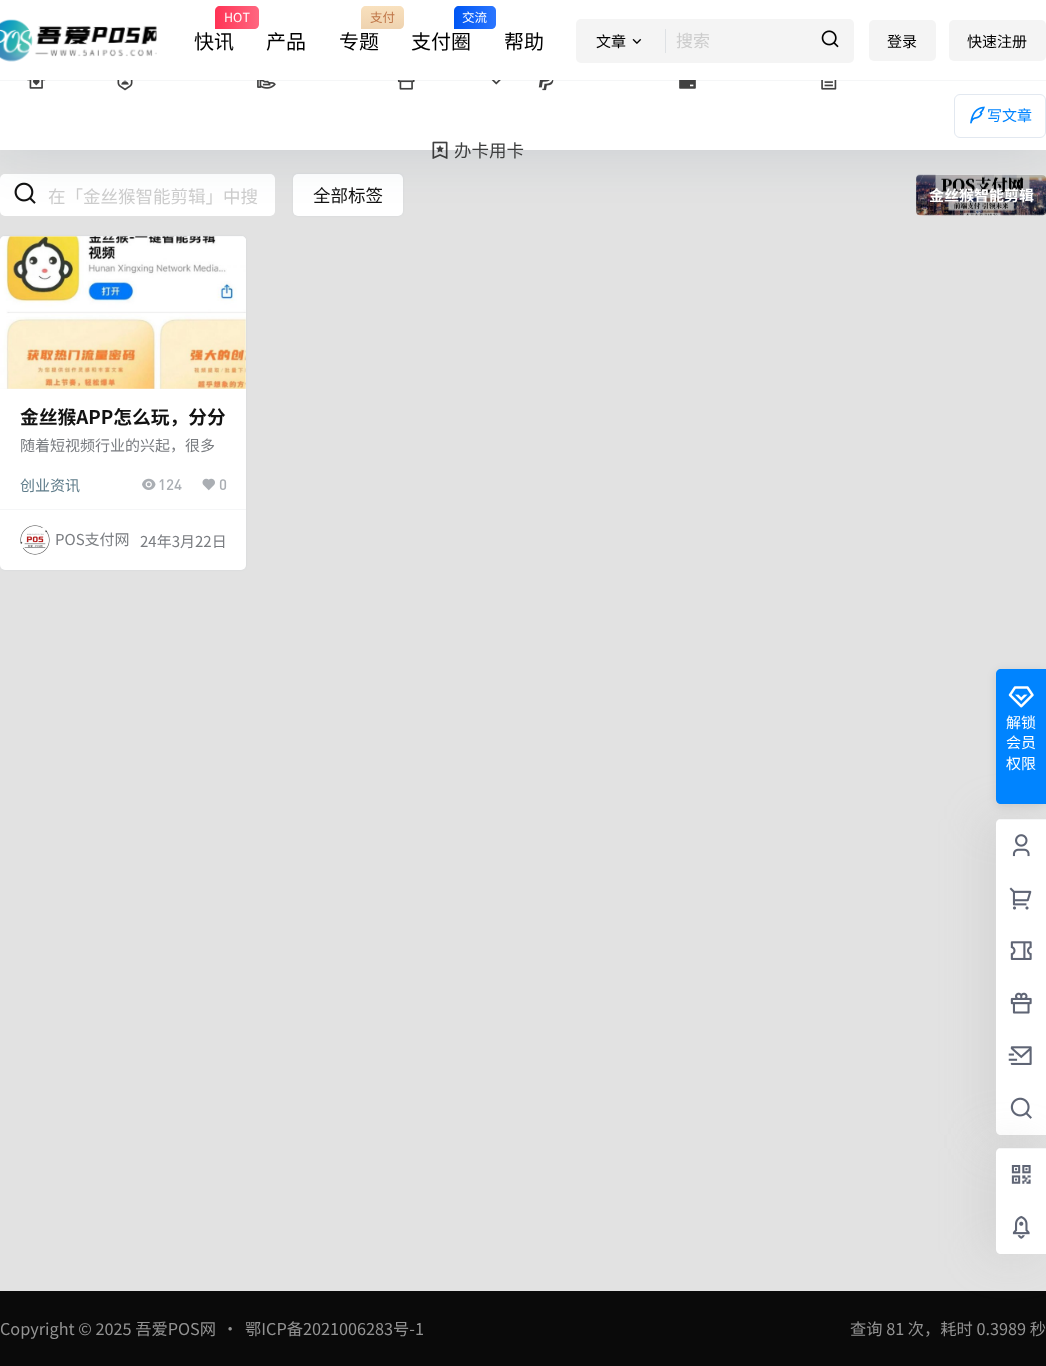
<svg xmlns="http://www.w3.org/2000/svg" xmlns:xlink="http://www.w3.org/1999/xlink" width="1046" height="1366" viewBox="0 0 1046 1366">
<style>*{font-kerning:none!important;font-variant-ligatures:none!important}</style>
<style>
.cls-1{font:12.5px Noto Sans CJK SC;fill:#ffffff}
.cls-2{font:20px Noto Sans CJK SC;fill:#000000}
.cls-3{font:12.5px Noto Sans CJK SC;fill:#bf7648}
.cls-4{font:15px Noto Sans CJK SC;fill:#000000}
.cls-5{font:17px Noto Sans CJK SC;fill:#cccccc}
.cls-6{font:15px Noto Sans CJK SC;fill:#0084ff}
.cls-7{font:17.5px Noto Sans CJK SC;fill:#3d3e3e}
.cls-8{font:17.5px Noto Sans CJK SC;fill:#cccccc}
.cls-9{font:17.5px Noto Sans CJK SC;fill:#121212}
.cls-10{font:bold 15px Noto Sans CJK SC;fill:#ffffff}
.cls-11{font:bold 18.75px Noto Sans CJK SC;fill:#121212}
.cls-12{font:15px Noto Sans CJK SC;fill:#797c80}
.cls-13{font:15px Noto Sans CJK SC;fill:#607d8b}
.cls-14{font:500 15px DIN;fill:#aaaeb3}
.cls-15{font:15px Noto Sans CJK SC;fill:#ffffff}
.cls-16{font:16.25px Noto Sans CJK SC;fill:#939393}
</style>
<defs>
<linearGradient id="g1" gradientUnits="userSpaceOnUse" x1="215" y1="17" x2="259" y2="17"><stop offset="0" stop-color="#ff3355"/><stop offset="1" stop-color="#ff6780"/></linearGradient>
<linearGradient id="g2" gradientUnits="userSpaceOnUse" x1="383" y1="28" x2="383" y2="5.6"><stop offset="0" stop-color="#efd3b0"/><stop offset="1" stop-color="#f9e1be"/></linearGradient>
<linearGradient id="g3" gradientUnits="userSpaceOnUse" x1="454" y1="17" x2="496" y2="17"><stop offset="0" stop-color="#0056f3"/><stop offset="1" stop-color="#2b76ff"/></linearGradient>
</defs>
<rect width="100%" height="100%" fill="#e2e2e2"/>
<rect fill="#ffffff" x="0" y="174" width="275" height="42" rx="5"/>
<image xlink:href="image13.png" x="14" y="182" width="22" height="22"/>
<rect fill="#627c99" fill-opacity="0.1" filter="blur(1px)" x="293" y="174" width="110" height="42" rx="5"/>
<rect fill="#ffffff" x="293" y="174" width="110" height="42" rx="5"/>
<image xlink:href="image14.png" x="916" y="174" width="130" height="42"/>
<rect fill="#000000" fill-opacity="0.26" x="916" y="175" width="130" height="40" rx="4"/>
<rect fill="#113a5d" fill-opacity="0.1" filter="blur(25px)" x="0" y="6" width="1046" height="149"/>
<rect fill="#ffffff" x="0" y="0" width="1046" height="80"/>
<image xlink:href="image0.png" x="0" y="19" width="157" height="43"/>
<path fill="url(#g1)" d="M220 6H254C257 6 259 8 259 11V24C259 27 257 29 254 29H215V11C215 8 217 6 220 6Z"/>
<path fill="url(#g2)" d="M366 6H399C402 6 404 8 404 11V24C404 27 402 29 399 29H361V11C361 8 363 6 366 6Z"/>
<path fill="url(#g3)" d="M459 6H491C494 6 496 8 496 11V24C496 27 494 29 491 29H454V11C454 8 456 6 459 6Z"/>
<rect fill="#f4f4f4" x="576" y="19" width="278" height="44" rx="5"/>
<rect fill="#dee1e4" x="665" y="29" width="1" height="24"/>
<image xlink:href="image1.png" x="632" y="38" width="10" height="6"/>
<image xlink:href="image2.png" x="821" y="30" width="18" height="18"/>
<rect fill="#f4f4f4" x="869" y="20" width="67" height="41" rx="5"/>
<rect fill="#f4f4f4" x="949" y="20" width="97" height="41" rx="5"/>
<rect fill="#f5f6f7" x="0" y="80" width="1046" height="1"/>
<rect fill="#ffffff" x="0" y="81" width="1046" height="69"/>
<rect fill="none" stroke="#e2e8f0" x="954.5" y="94.5" width="91" height="43" rx="5.5"/>
<image xlink:href="image3.png" x="970" y="106" width="15" height="18"/>
<image xlink:href="image4.png" x="27" y="80" width="19" height="9"/>
<image xlink:href="image5.png" x="117" y="80" width="16" height="11"/>
<image xlink:href="image6.png" x="257" y="80" width="19" height="9"/>
<image xlink:href="image7.png" x="397" y="80" width="18" height="10"/>
<image xlink:href="image8.png" x="491" y="80" width="10" height="5"/>
<image xlink:href="image9.png" x="538" y="80" width="16" height="11"/>
<image xlink:href="image10.png" x="679" y="80" width="17" height="9"/>
<image xlink:href="image11.png" x="821" y="80" width="16" height="10"/>
<image xlink:href="image12.png" x="432" y="141" width="16" height="18"/>
<rect fill="#627c99" fill-opacity="0.1" filter="blur(1px)" x="0" y="236" width="246" height="334" rx="5"/>
<rect fill="#ffffff" x="0" y="236" width="246" height="334" rx="5"/>
<path fill="#f5f6f7" d="M5 236H241C244 236 246 238 246 241V389H0V241C0 238 2 236 5 236Z"/>
<image xlink:href="image15.png" x="0" y="236" width="246" height="153"/>
<image xlink:href="image16.png" x="142" y="478" width="14" height="12"/>
<image xlink:href="image17.png" x="202" y="478" width="13" height="13"/>
<rect fill="#f5f6f7" x="0" y="509" width="246" height="1"/>
<circle fill="#eeeeee" cx="35" cy="540" r="15"/>
<image xlink:href="image18.png" x="20" y="525" width="30" height="30"/>
<rect fill="#b5b5b5" fill-opacity="0.32" filter="blur(22px)" x="986" y="819" width="50" height="316" rx="5"/>
<path fill="#ffffff" d="M1001 819H1046V1135H1001C998 1135 996 1133 996 1130V824C996 821 998 819 1001 819Z"/>
<rect fill="#f5f6f7" x="999" y="819" width="47" height="1"/>
<rect fill="#000000" fill-opacity="0.1" filter="blur(5px)" x="996" y="671" width="50" height="135" rx="5"/>
<path fill="#0084ff" d="M1001 669H1046V804H1001C998 804 996 802 996 799V674C996 671 998 669 1001 669Z"/>
<image xlink:href="image19.png" x="1008" y="686" width="26" height="22"/>
<image xlink:href="image20.png" x="1012" y="834" width="18" height="23"/>
<image xlink:href="image21.png" x="1009" y="887" width="23" height="23"/>
<image xlink:href="image22.png" x="1010" y="941" width="22" height="19"/>
<image xlink:href="image23.png" x="1010" y="992" width="22" height="22"/>
<image xlink:href="image24.png" x="1008" y="1046" width="24" height="19"/>
<image xlink:href="image25.png" x="1010" y="1097" width="22" height="22"/>
<rect fill="#0a0a0a" x="0" y="1291" width="1046" height="75"/>
<rect fill="#b5b5b5" fill-opacity="0.32" filter="blur(22px)" x="986" y="1148" width="50" height="106" rx="5"/>
<path fill="#ffffff" d="M1001 1148H1046V1254H1001C998 1254 996 1252 996 1249V1153C996 1150 998 1148 1001 1148Z"/>
<rect fill="#f5f6f7" x="999" y="1148" width="47" height="1"/>
<image xlink:href="image26.png" x="1011" y="1165" width="20" height="19"/>
<image xlink:href="image27.png" x="1012" y="1215" width="18" height="24"/>
<text class="cls-1" x="224" y="22">HOT</text>
<text class="cls-2" x="194" y="49">快讯</text>
<text class="cls-2" x="266" y="49">产品</text>
<text class="cls-3" x="370" y="22">支付</text>
<text class="cls-2" x="339" y="49">专题</text>
<text class="cls-1" x="462" y="22">交流</text>
<text class="cls-2" x="411" y="49">支付圈</text>
<text class="cls-2" x="504" y="49">帮助</text>
<text class="cls-4" x="596" y="47">文章</text>
<text class="cls-5" x="676" y="47">搜索</text>
<text class="cls-4" x="887" y="47">登录</text>
<text class="cls-4" x="967" y="47">快速注册</text>
<text class="cls-6" x="987" y="121">写文章</text>
<text class="cls-7" x="454" y="157">办卡用卡</text>
<text class="cls-8" x="48" y="203">在「金丝猴智能剪辑」中搜</text>
<text class="cls-9" x="313" y="202">全部标签</text>
<text class="cls-10" x="929" y="201">金丝猴智能剪辑</text>
<text class="cls-11" x="20" y="424">金丝猴APP怎么玩，分分</text>
<text class="cls-12" x="20" y="451">随着短视频行业的兴起，很多</text>
<text class="cls-13" x="20" y="491">创业资讯</text>
<text class="cls-14" x="158" y="490">124</text>
<text class="cls-14" x="219" y="490">0</text>
<text class="cls-12" x="55" y="545">POS支付网</text>
<text class="cls-12" x="140" y="547">24年3月22日</text>
<text class="cls-15"><tspan x="1006" y="728">解锁</tspan><tspan x="1006" y="748">会员</tspan><tspan x="1006" y="769">权限</tspan></text>
<text class="cls-16" x="0" y="1335">Copyright © 2025 吾爱POS网</text>
<text class="cls-16" x="222" y="1335">・</text>
<text class="cls-16" x="245" y="1335">鄂ICP备2021006283号-1</text>
<text class="cls-16" x="850" y="1335">查询 81 次，耗时 0.3989 秒</text>
</svg>
